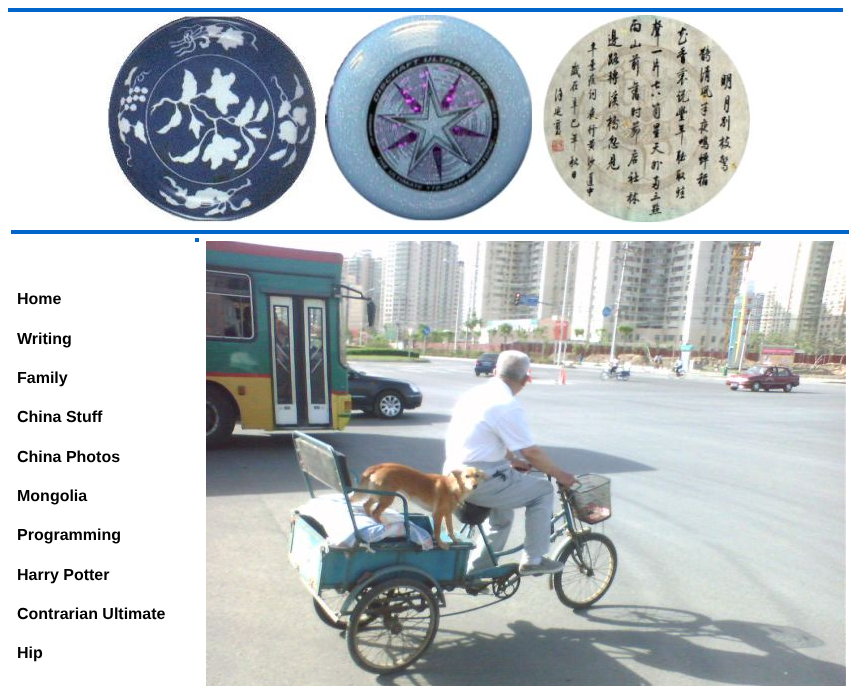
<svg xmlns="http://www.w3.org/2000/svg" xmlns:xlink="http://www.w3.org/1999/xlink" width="851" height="686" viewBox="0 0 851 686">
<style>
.cls-1{font:bold 16px Liberation Sans;fill:#000000}
</style>
<rect width="100%" height="100%" fill="#ffffff"/>
<rect fill="#0066cc" x="8" y="8" width="835" height="4"/>
<image xlink:href="image0.png" x="106" y="15" width="648" height="208"/>
<rect fill="#0066cc" x="11" y="230" width="838" height="4"/>
<rect fill="#0066cc" x="195" y="238" width="4" height="4"/>
<image xlink:href="image1.png" x="206" y="241" width="640" height="445"/>
<text class="cls-1" x="17" y="304">Home</text>
<text class="cls-1" x="17" y="344">Writing</text>
<text class="cls-1" x="17" y="383">Family</text>
<text class="cls-1" x="17" y="422">China Stuff</text>
<text class="cls-1" x="17" y="462">China Photos</text>
<text class="cls-1" x="17" y="501">Mongolia</text>
<text class="cls-1" x="17" y="540">Programming</text>
<text class="cls-1" x="17" y="580">Harry Potter</text>
<text class="cls-1" x="17" y="619">Contrarian Ultimate</text>
<text class="cls-1" x="17" y="658">Hip</text>
</svg>
